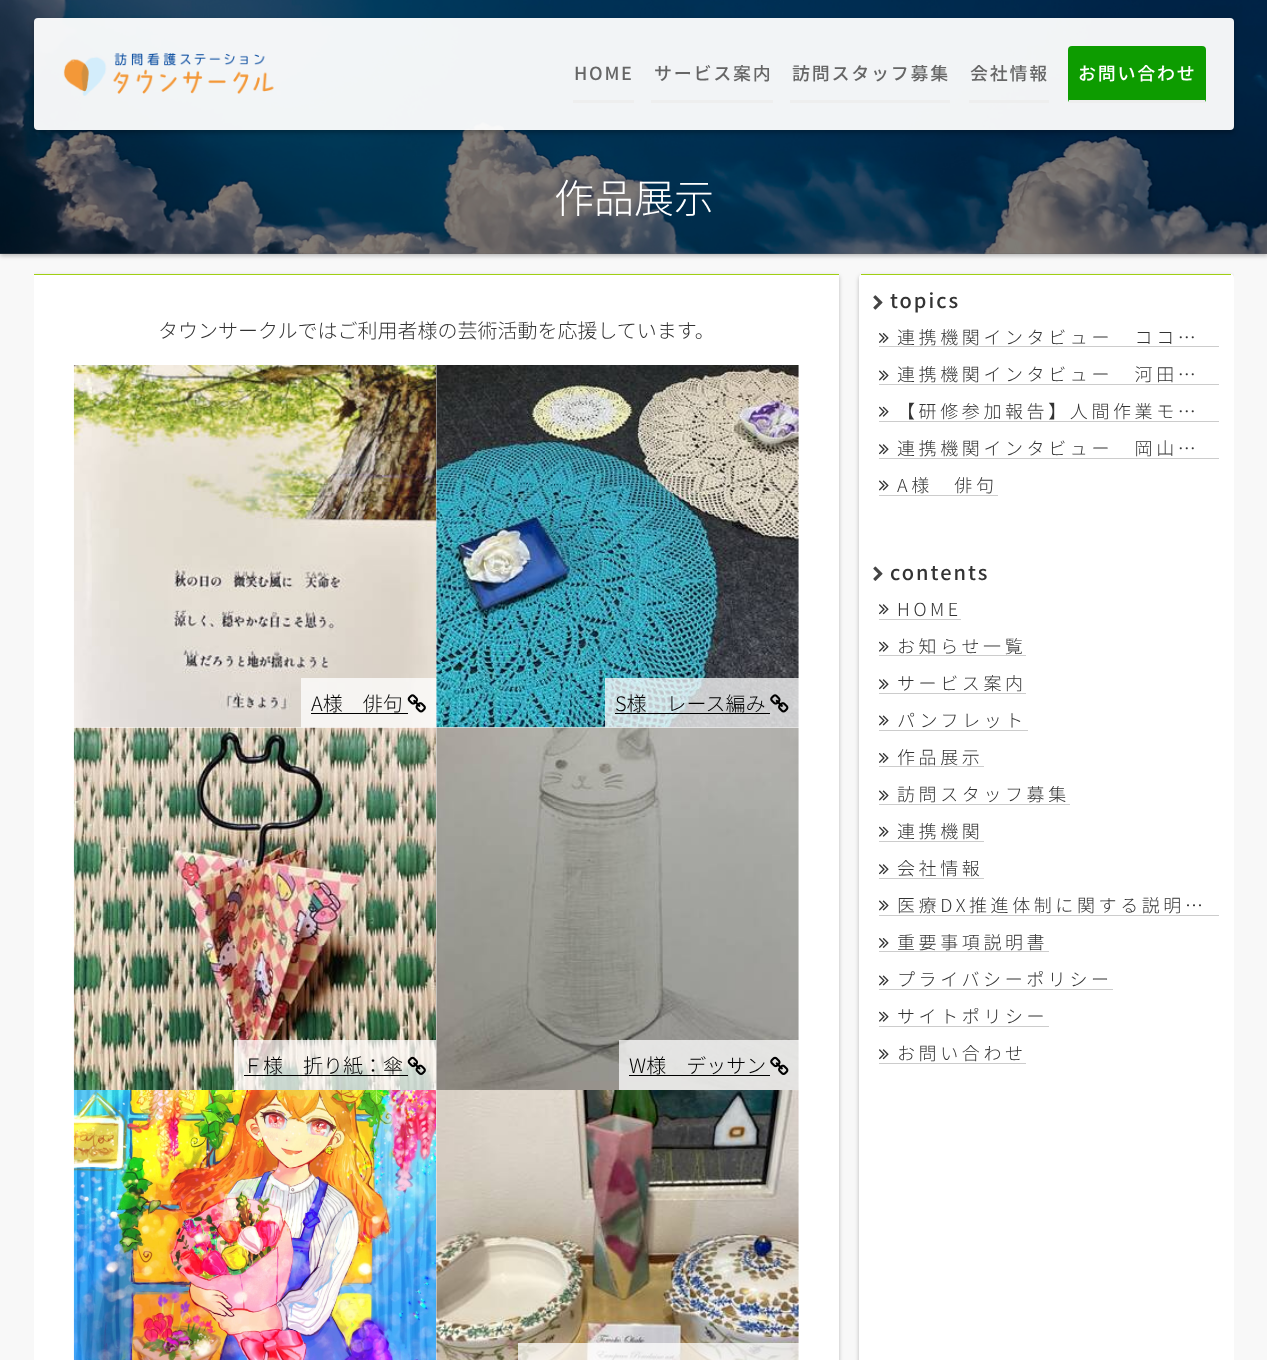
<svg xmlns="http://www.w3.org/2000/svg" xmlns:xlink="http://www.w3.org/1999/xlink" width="1267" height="1360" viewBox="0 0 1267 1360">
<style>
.cls-1{font:500 18px Noto Sans JP;letter-spacing:1.75px;fill:#666666}
.cls-2{font:500 18px Noto Sans JP;letter-spacing:1.75px;fill:#ffffff}
.cls-3{font:300 40px Noto Sans JP;fill:#ffffff}
.cls-4{font:300 20px Noto Sans JP;fill:#333333}
.cls-5{font:300 20px Noto Sans JP;fill:#000000}
.cls-6{font:500 20px Noto Sans JP;letter-spacing:2px;fill:#333333}
.cls-7{font:300 18px Noto Sans JP;letter-spacing:3.6px;fill:#333333}
</style>
<defs>
<clipPath id="clip1"><path d="M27 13H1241V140H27ZM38 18H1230C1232 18 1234 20 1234 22V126C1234 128 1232 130 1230 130H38C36 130 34 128 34 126V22C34 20 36 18 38 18Z" clip-rule="evenodd"/></clipPath>
<clipPath id="clip2"><rect x="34" y="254" width="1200" height="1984"/></clipPath>
</defs>
<rect width="100%" height="100%" fill="#f8f8f8"/>
<rect fill="#000000" fill-opacity="0.25" filter="blur(2px)" x="0" y="3" width="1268" height="253"/>
<image xlink:href="image0.png" x="0" y="0" width="1267" height="254"/>
<rect fill="#000000" fill-opacity="0.5" x="0" y="0" width="1267" height="254"/>
<g clip-path="url(#clip1)">
<rect fill="#000000" fill-opacity="0.25" filter="blur(2px)" x="34" y="20" width="1200" height="113" rx="4"/>
</g>
<rect fill="#ffffff" fill-opacity="0.95" x="34" y="18" width="1200" height="112" rx="4"/>
<image xlink:href="image1.png" x="63" y="53" width="211" height="43"/>
<rect fill="#eeeeee" x="573" y="100" width="61" height="3"/>
<rect fill="#eeeeee" x="651" y="100" width="122" height="3"/>
<rect fill="#eeeeee" x="790" y="100" width="160" height="3"/>
<rect fill="#eeeeee" x="969" y="100" width="80" height="3"/>
<rect fill="#0d9c00" x="1068" y="46" width="138" height="57" rx="4"/>
<rect fill="#eeeeee" x="1069" y="100" width="136" height="3"/>
<g clip-path="url(#clip2)">
<rect fill="#000000" fill-opacity="0.25" filter="blur(2px)" x="34" y="276" width="805" height="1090"/>
</g>
<rect fill="#ffffff" x="34" y="275" width="805" height="1085"/>
<rect fill="#a0cf13" x="34" y="274" width="805" height="1"/>
<image xlink:href="image2.png" x="73" y="365" width="364" height="363"/>
<rect fill="#ffffff" fill-opacity="0.75" x="301" y="678" width="135" height="50"/>
<rect fill="#000000" x="311" y="713" width="97" height="1"/>
<image xlink:href="image3.png" x="407" y="694" width="19" height="19"/>
<image xlink:href="image4.png" x="436" y="365" width="363" height="363"/>
<rect fill="#ffffff" fill-opacity="0.75" x="605" y="678" width="194" height="50"/>
<rect fill="#000000" x="615" y="713" width="155" height="1"/>
<image xlink:href="image5.png" x="770" y="694" width="19" height="19"/>
<image xlink:href="image6.png" x="73" y="727" width="364" height="363"/>
<rect fill="#ffffff" fill-opacity="0.75" x="234" y="1040" width="202" height="50"/>
<rect fill="#000000" x="244" y="1075" width="164" height="1"/>
<image xlink:href="image7.png" x="407" y="1056" width="19" height="19"/>
<image xlink:href="image8.png" x="436" y="727" width="363" height="363"/>
<rect fill="#ffffff" fill-opacity="0.75" x="619" y="1040" width="180" height="50"/>
<rect fill="#000000" x="629" y="1075" width="141" height="1"/>
<image xlink:href="image9.png" x="770" y="1056" width="19" height="19"/>
<image xlink:href="image10.png" x="73" y="1090" width="364" height="270"/>
<image xlink:href="image11.png" x="436" y="1090" width="363" height="270"/>
<rect fill="#ffffff" fill-opacity="0.75" x="518" y="1343" width="281" height="17"/>
<g clip-path="url(#clip2)">
<rect fill="#000000" fill-opacity="0.25" filter="blur(2px)" x="859" y="276" width="375" height="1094" rx="4"/>
</g>
<rect fill="#ffffff" x="859" y="274" width="375" height="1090" rx="4"/>
<rect fill="#a0cf13" x="861" y="274" width="370" height="1"/>
<image xlink:href="image12.png" x="873" y="295" width="10" height="15"/>
<rect fill="#cccccc" x="879" y="346" width="340" height="1"/>
<image xlink:href="image13.png" x="879" y="333" width="10" height="10"/>
<rect fill="#cccccc" x="879" y="384" width="340" height="1"/>
<image xlink:href="image14.png" x="879" y="370" width="10" height="11"/>
<rect fill="#cccccc" x="879" y="421" width="340" height="1"/>
<image xlink:href="image15.png" x="879" y="406" width="10" height="11"/>
<rect fill="#cccccc" x="879" y="458" width="340" height="1"/>
<image xlink:href="image16.png" x="879" y="444" width="10" height="11"/>
<rect fill="#cccccc" x="879" y="495" width="119" height="1"/>
<image xlink:href="image14.png" x="879" y="480" width="10" height="11"/>
<image xlink:href="image17.png" x="873" y="566" width="10" height="15"/>
<rect fill="#cccccc" x="879" y="619" width="82" height="1"/>
<image xlink:href="image16.png" x="879" y="604" width="10" height="11"/>
<rect fill="#cccccc" x="879" y="655" width="147" height="1"/>
<image xlink:href="image15.png" x="879" y="641" width="10" height="11"/>
<rect fill="#cccccc" x="879" y="693" width="147" height="1"/>
<image xlink:href="image16.png" x="879" y="679" width="10" height="11"/>
<rect fill="#cccccc" x="879" y="730" width="149" height="1"/>
<image xlink:href="image14.png" x="879" y="715" width="10" height="11"/>
<rect fill="#cccccc" x="879" y="766" width="105" height="1"/>
<image xlink:href="image13.png" x="879" y="753" width="10" height="10"/>
<rect fill="#cccccc" x="879" y="804" width="191" height="1"/>
<image xlink:href="image14.png" x="879" y="790" width="10" height="11"/>
<rect fill="#cccccc" x="879" y="841" width="105" height="1"/>
<image xlink:href="image15.png" x="879" y="826" width="10" height="11"/>
<rect fill="#cccccc" x="879" y="878" width="105" height="1"/>
<image xlink:href="image16.png" x="879" y="864" width="10" height="11"/>
<rect fill="#cccccc" x="879" y="915" width="340" height="1"/>
<image xlink:href="image14.png" x="879" y="900" width="10" height="11"/>
<rect fill="#cccccc" x="879" y="951" width="170" height="1"/>
<image xlink:href="image13.png" x="879" y="938" width="10" height="10"/>
<rect fill="#cccccc" x="879" y="989" width="234" height="1"/>
<image xlink:href="image14.png" x="879" y="975" width="10" height="11"/>
<rect fill="#cccccc" x="879" y="1026" width="170" height="1"/>
<image xlink:href="image15.png" x="879" y="1011" width="10" height="11"/>
<rect fill="#cccccc" x="879" y="1063" width="147" height="1"/>
<image xlink:href="image16.png" x="879" y="1049" width="10" height="11"/>
<text class="cls-1" x="574" y="80">HOME</text>
<text class="cls-1" x="654" y="80">サービス案内</text>
<text class="cls-1" x="792" y="80">訪問スタッフ募集</text>
<text class="cls-1" x="970" y="80">会社情報</text>
<text class="cls-2" x="1078" y="80">お問い合わせ</text>
<text class="cls-3" x="554" y="213">作品展示</text>
<text class="cls-4" x="158" y="338">タウンサークルではご利用者様の芸術活動を応援しています。</text>
<text class="cls-5" x="311" y="711">A様　俳句</text>
<text class="cls-5" x="615" y="711">S様　レース編み</text>
<text class="cls-5" x="243" y="1073">Ｆ様　折り紙：傘</text>
<text class="cls-5" x="629" y="1073">W様　デッサン</text>
<text class="cls-6" x="890" y="308">topics</text>
<text class="cls-7" x="897" y="344">連携機関インタビュー　ココ…</text>
<text class="cls-7" x="897" y="381">連携機関インタビュー　河田…</text>
<text class="cls-7" x="897" y="418">【研修参加報告】人間作業モ…</text>
<text class="cls-7" x="897" y="455">連携機関インタビュー　岡山…</text>
<text class="cls-7" x="897" y="492">A様　俳句</text>
<text class="cls-6" x="890" y="580">contents</text>
<text class="cls-7" x="897" y="616">HOME</text>
<text class="cls-7" x="897" y="653">お知らせ一覧</text>
<text class="cls-7" x="897" y="690">サービス案内</text>
<text class="cls-7" x="897" y="727">パンフレット</text>
<text class="cls-7" x="897" y="764">作品展示</text>
<text class="cls-7" x="897" y="801">訪問スタッフ募集</text>
<text class="cls-7" x="897" y="838">連携機関</text>
<text class="cls-7" x="897" y="875">会社情報</text>
<text class="cls-7" x="897" y="912">医療DX推進体制に関する説明…</text>
<text class="cls-7" x="897" y="949">重要事項説明書</text>
<text class="cls-7" x="897" y="986">プライバシーポリシー</text>
<text class="cls-7" x="897" y="1023">サイトポリシー</text>
<text class="cls-7" x="897" y="1060">お問い合わせ</text>
</svg>
